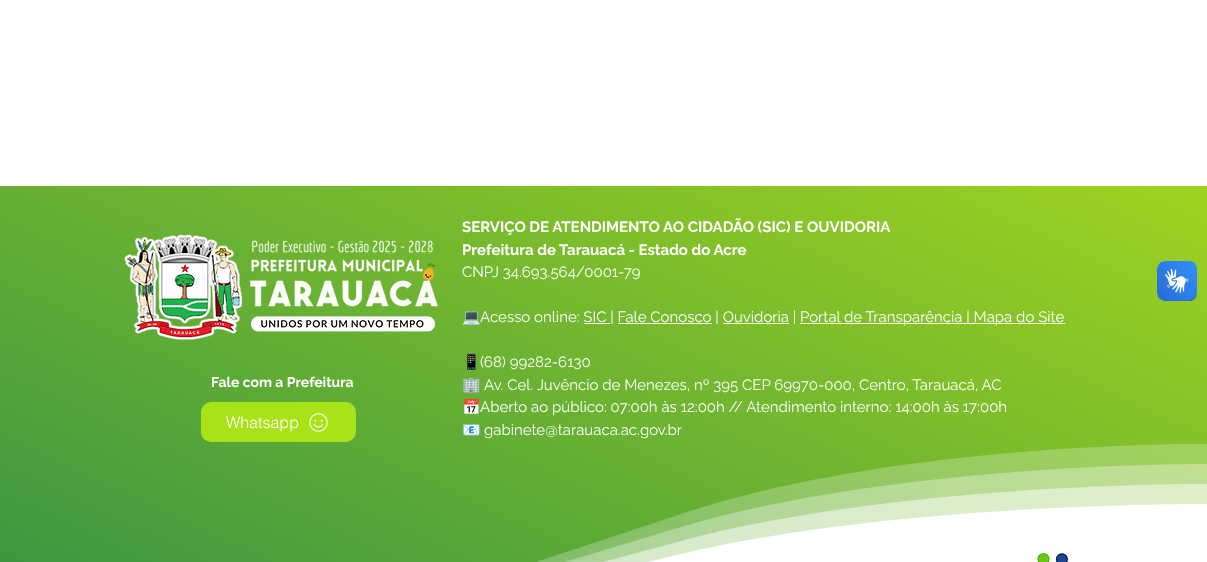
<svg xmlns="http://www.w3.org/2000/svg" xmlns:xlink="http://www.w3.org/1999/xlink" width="1207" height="562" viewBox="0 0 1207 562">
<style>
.cls-1{font:bold 15px Raleway;fill:#ffffff}
.cls-2{font:15px Raleway;fill:#ffffff}
.cls-3{font:15px Noto Color Emoji;fill:#ffffff}
.cls-4{font:bold 14px Raleway;fill:#ffffff}
.cls-5{font:300 16px helvetica;fill:#ffffff}
</style>
<defs>
<linearGradient id="g1" gradientUnits="userSpaceOnUse" x1="801" y1="-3.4" x2="406" y2="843"><stop offset="0" stop-color="#a0d320"/><stop offset="1" stop-color="#349144"/></linearGradient>
</defs>
<rect width="100%" height="100%" fill="#ffffff"/>
<rect fill="url(#g1)" x="0" y="186" width="1207" height="376"/>
<image xlink:href="image0.png" x="124" y="234" width="314" height="106"/>
<rect fill="#ffffff" x="800" y="323" width="265" height="1"/>
<rect fill="#ffffff" x="584" y="323" width="26" height="1"/>
<rect fill="#ffffff" x="618" y="323" width="94" height="1"/>
<rect fill="#ffffff" x="723" y="323" width="66" height="1"/>
<rect fill="#a9e219" x="201" y="402" width="155" height="40" rx="10"/>
<image xlink:href="image1.png" x="309" y="413" width="19" height="19"/>
<path fill="#ffffff" fill-opacity="0.25" d="M0 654V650C286 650 434 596 681 514C899 441 1207 444 1207 444V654Z"/>
<path fill="#ffffff" fill-opacity="0.33" d="M0 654V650C286 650 434 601 681 527C899 462 1207 464 1207 464V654Z"/>
<path fill="#ffffff" fill-opacity="0.5" d="M0 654V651C286 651 434 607 681 541C899 482 1207 484 1207 484V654Z"/>
<path fill="#ffffff" d="M0 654V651C286 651 434 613 681 554C899 502 1207 504 1207 504V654Z"/>
<image xlink:href="image2.png" x="1035" y="552" width="35" height="10"/>
<image xlink:href="image3.png" x="1157" y="261" width="40" height="40"/>
<image xlink:href="image4.png" x="1157" y="261" width="40" height="40"/>
<text class="cls-1"><tspan x="462" y="232">SERVIÇO DE ATENDIMENTO AO CIDADÃO (SIC) E OUVIDORIA</tspan><tspan x="462" y="255">Prefeitura de Tarauacá - Estado do Acre</tspan></text>
<text class="cls-2" x="462" y="277">CNPJ 34.693.564/0001-79</text>
<text class="cls-3" x="462" y="322">💻</text>
<text class="cls-2" x="480" y="322">Acesso online: SIC | Fale Conosco | Ouvidoria |</text>
<text class="cls-2" x="800" y="322">Portal de Transparência | Mapa do Site</text>
<text class="cls-3" x="462" y="367">📱</text>
<text class="cls-2" x="480" y="367">(68) 99282-6130</text>
<text class="cls-3" x="462" y="390">🏢</text>
<text class="cls-2" x="484" y="390">Av. Cel. Juvêncio de Menezes, nº 395 CEP 69970-000, Centro, Tarauacá, AC</text>
<text class="cls-3" x="462" y="412">📅</text>
<text class="cls-2" x="480" y="412">Aberto ao público: 07:00h às 12:00h // Atendimento interno: 14:00h às 17:00h</text>
<text class="cls-3" x="462" y="435">📧</text>
<text class="cls-2" x="484" y="435">gabinete@tarauaca.ac.gov.br</text>
<text class="cls-4" x="211" y="387">Fale com a Prefeitura</text>
<text class="cls-5" x="226" y="428">Whatsapp</text>
</svg>
